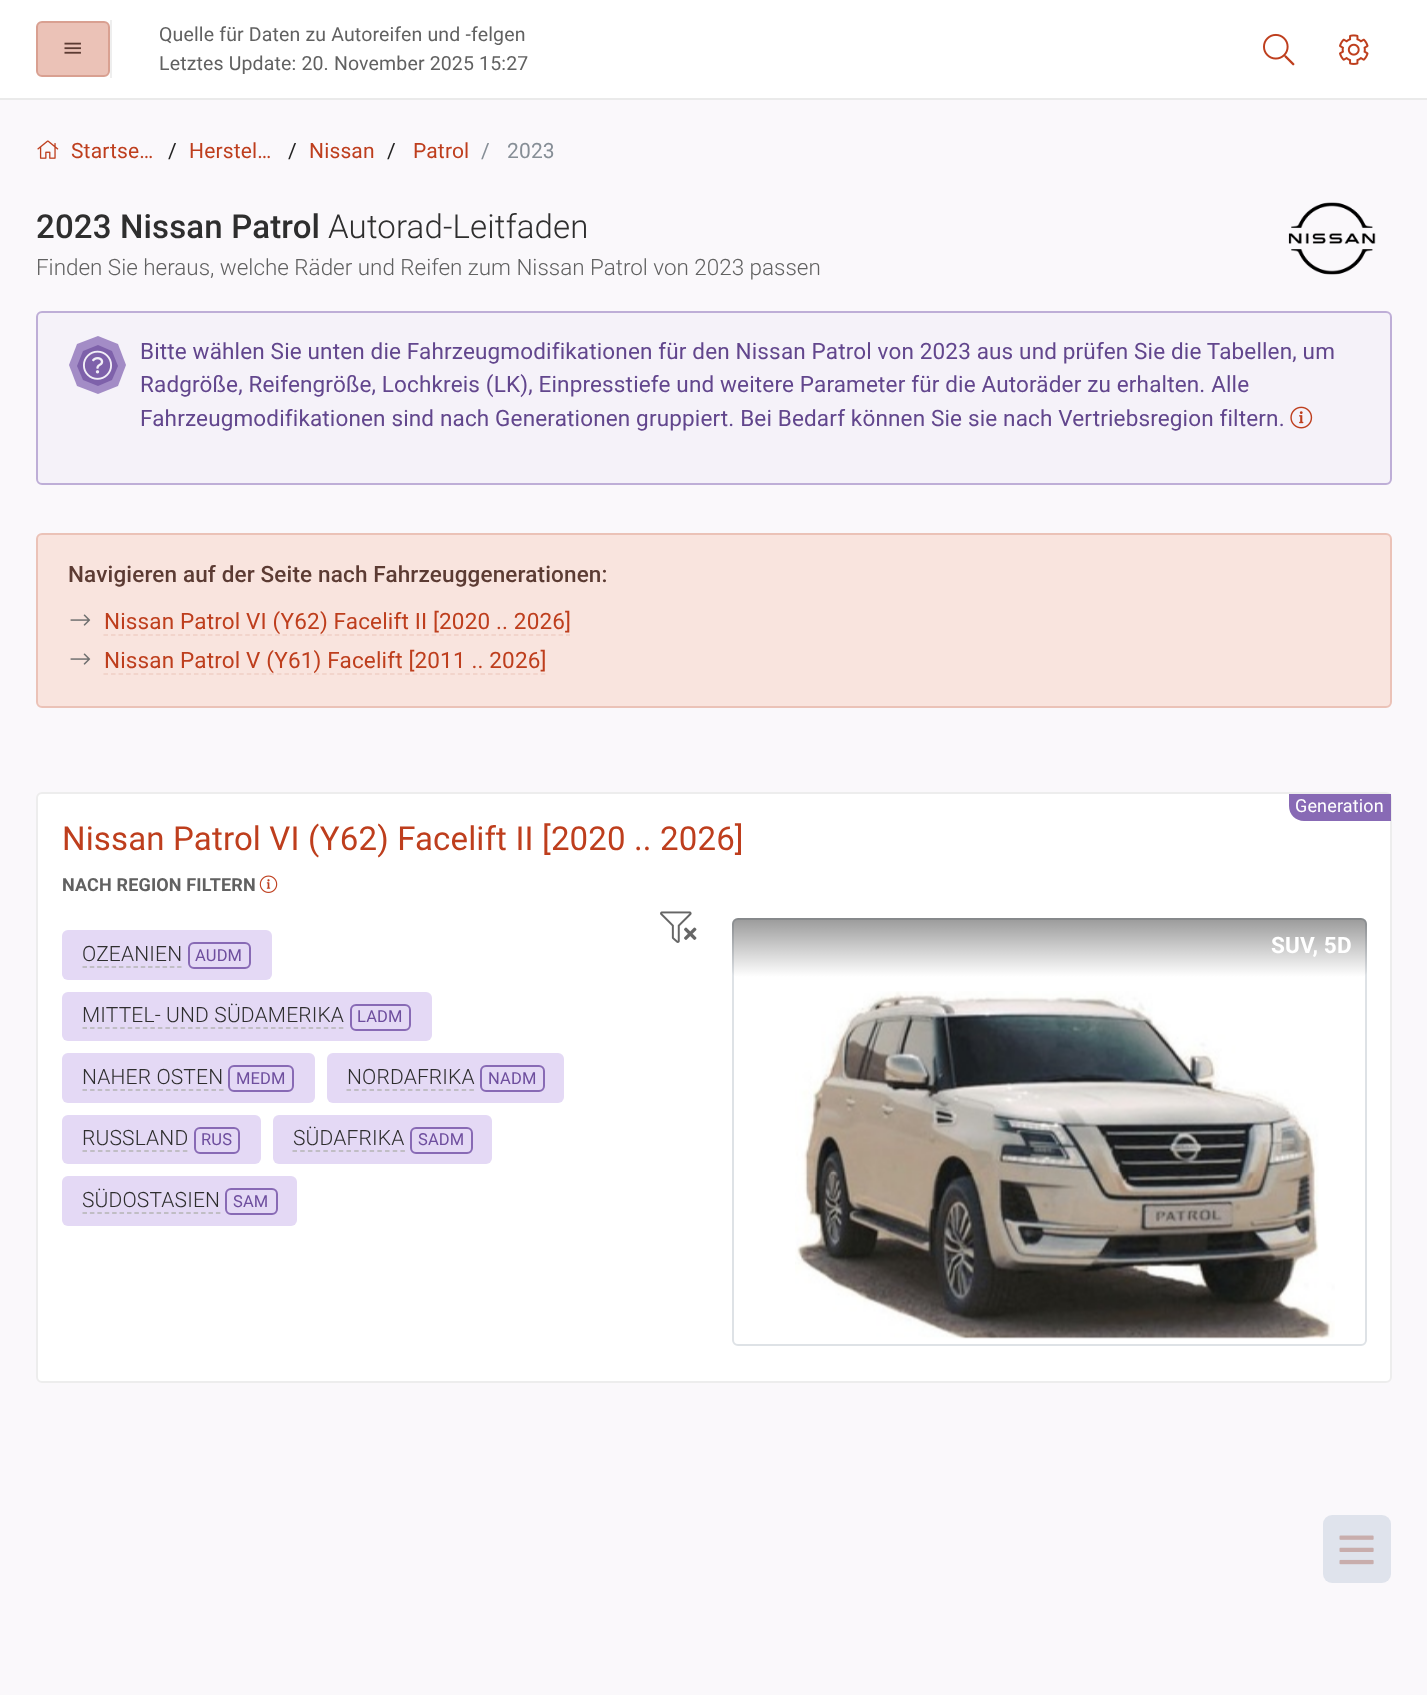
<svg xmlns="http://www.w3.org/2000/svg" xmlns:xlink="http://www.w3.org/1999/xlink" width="1427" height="1695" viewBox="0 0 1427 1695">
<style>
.cls-1{font:19.5px Roboto;letter-spacing:0.15px;fill:#616161}
.cls-2{font:21px Roboto;letter-spacing:0.15px;fill:#be3e1d}
.cls-3{font:21px Roboto;letter-spacing:0.15px;fill:#222222}
.cls-4{font:21px Roboto;letter-spacing:0.15px;fill:#868e96}
.cls-5{font:500 33px Roboto;letter-spacing:0.15px;fill:#2e2e2e}
.cls-6{font:300 33px Roboto;letter-spacing:0.15px;fill:#2e2e2e}
.cls-7{font:300 22.45px Roboto;fill:#616161}
.cls-8{font:22.5px Roboto;letter-spacing:0.15px;fill:#62468d}
.cls-9{font:500 22.5px Roboto;letter-spacing:0.15px;fill:#5c3b33}
.cls-10{font:22.5px Roboto;letter-spacing:0.15px;fill:#be3e1d}
.cls-11{font:18px Roboto;letter-spacing:0.15px;fill:#ffffff}
.cls-12{font:33px Roboto;letter-spacing:0.15px;fill:#be3e1d}
.cls-13{font:bold 18px Roboto;letter-spacing:0.15px;fill:#616161}
.cls-14{font:300 21px Roboto;letter-spacing:0.15px;fill:#2e2e2e}
.cls-15{font:16.5px Roboto;letter-spacing:0.15px;fill:#6e4e9e}
.cls-16{font:bold 22.5px Roboto;letter-spacing:0.15px;fill:#ffffff}
</style>
<defs>
<linearGradient id="g1" gradientUnits="userSpaceOnUse" x1="1049" y1="918" x2="1049" y2="977"><stop offset="0" stop-color="#000000" stop-opacity="0.4"/><stop offset="1" stop-color="#000000" stop-opacity="0"/></linearGradient>
</defs>
<rect width="100%" height="100%" fill="#ffffff"/>
<rect fill="#eaeaea" x="0" y="98" width="1427" height="2"/>
<rect fill="#ebc2b7" stroke="#d9a091" stroke-width="2" x="37" y="22" width="72" height="54" rx="5"/>
<image xlink:href="image0.png" x="64" y="42" width="17" height="12"/>
<rect fill="#eeeeee" x="110" y="20" width="2" height="58"/>
<image xlink:href="image1.png" x="1263" y="33" width="32" height="33"/>
<image xlink:href="image2.png" x="1339" y="34" width="30" height="31"/>
<rect fill="#faf8fb" x="0" y="100" width="1427" height="1595"/>
<image xlink:href="image3.png" x="37" y="140" width="22" height="19"/>
<image xlink:href="image4.png" x="1288" y="202" width="88" height="73"/>
<rect fill="#f5f2f9" stroke="#beaed7" stroke-width="2" x="37" y="312" width="1354" height="172" rx="5"/>
<path fill="#a38cc6" d="M77 386L69 365L77 344L98 336L118 344L126 365L118 386L98 394Z"/>
<path fill="#7e61aa" d="M83 380L77 366L83 351L98 345L112 351L118 366L112 380L98 386Z"/>
<image xlink:href="image5.png" x="83" y="350" width="29" height="30"/>
<image xlink:href="image6.png" x="1290" y="406" width="23" height="23"/>
<rect fill="#f9e4de" stroke="#ebc2b7" stroke-width="2" x="37" y="534" width="1354" height="173" rx="5"/>
<image xlink:href="image7.png" x="70" y="614" width="21" height="12"/>
<path fill="none" stroke="#efcec5" stroke-width="1.5" stroke-dasharray="4.5 2.96" d="M103.5 635H570"/>
<image xlink:href="image7.png" x="70" y="653" width="21" height="12"/>
<path fill="none" stroke="#efcec5" stroke-width="1.5" stroke-dasharray="4.5 3.04" d="M103.5 674H546"/>
<rect fill="#ffffff" stroke="#ededed" stroke-width="2" x="37" y="793" width="1354" height="589" rx="5"/>
<path fill="#886ab5" d="M1289 794H1391V821H1304C1295.5 821 1289 814.5 1289 806Z"/>
<image xlink:href="image8.png" x="259" y="875" width="19" height="18"/>
<image xlink:href="image9.png" x="660" y="911" width="32" height="32"/>
<image xlink:href="image10.png" x="684" y="927" width="13" height="13"/>
<rect fill="#e4d9f5" x="62" y="930" width="210" height="50" rx="6"/>
<path fill="none" stroke="#b4b4b4" stroke-width="1.5" stroke-dasharray="4.5 2.78" d="M82.5 967H181.5"/>
<rect fill="none" stroke="#886ab5" stroke-width="2" x="189" y="943" width="61" height="25" rx="5"/>
<rect fill="#e4d9f5" x="62" y="992" width="370" height="49" rx="6"/>
<path fill="none" stroke="#b4b4b4" stroke-width="1.5" stroke-dasharray="4.5 3.04" d="M82.5 1028H343.5"/>
<rect fill="none" stroke="#886ab5" stroke-width="2" x="351" y="1005" width="59" height="25" rx="5"/>
<rect fill="#e4d9f5" x="62" y="1053" width="253" height="50" rx="6"/>
<path fill="none" stroke="#b4b4b4" stroke-width="1.5" stroke-dasharray="4.5 3.09" d="M82.5 1090H223.5"/>
<rect fill="none" stroke="#886ab5" stroke-width="2" x="229" y="1066" width="64" height="25" rx="5"/>
<rect fill="#e4d9f5" x="327" y="1053" width="237" height="50" rx="6"/>
<path fill="none" stroke="#b4b4b4" stroke-width="1.5" stroke-dasharray="4.5 3.18" d="M346.5 1090H474"/>
<rect fill="none" stroke="#886ab5" stroke-width="2" x="481" y="1066" width="63" height="25" rx="5"/>
<rect fill="#e4d9f5" x="62" y="1115" width="199" height="49" rx="6"/>
<path fill="none" stroke="#b4b4b4" stroke-width="1.5" stroke-dasharray="4.5 3.22" d="M82.5 1151H187.5"/>
<rect fill="none" stroke="#886ab5" stroke-width="2" x="195" y="1128" width="44" height="25" rx="5"/>
<rect fill="#e4d9f5" x="273" y="1115" width="219" height="49" rx="6"/>
<path fill="none" stroke="#b4b4b4" stroke-width="1.5" stroke-dasharray="4.5 3.21" d="M292.5 1151H405"/>
<rect fill="none" stroke="#886ab5" stroke-width="2" x="411" y="1128" width="61" height="25" rx="5"/>
<rect fill="#e4d9f5" x="62" y="1176" width="235" height="50" rx="6"/>
<path fill="none" stroke="#b4b4b4" stroke-width="1.5" stroke-dasharray="4.5 2.91" d="M82.5 1213H220.5"/>
<rect fill="none" stroke="#886ab5" stroke-width="2" x="226" y="1189" width="51" height="25" rx="5"/>
<rect fill="none" stroke="#dee2e6" stroke-width="2" x="733" y="919" width="633" height="426" rx="5"/>
<image xlink:href="image11.png" x="795" y="991" width="540" height="348"/>
<rect fill="url(#g1)" x="732" y="918" width="635" height="59" rx="6"/>
<rect fill="#dfe3ec" x="1323" y="1515" width="68" height="68" rx="9"/>
<image xlink:href="image12.png" x="1339" y="1535" width="35" height="30"/>
<text class="cls-1"><tspan x="159" y="41">Quelle für Daten zu Autoreifen und -felgen</tspan><tspan x="159" y="70">Letztes Update: 20. November 2025 15:27</tspan></text>
<text class="cls-2" x="71" y="158">Startse…</text>
<text class="cls-3" x="168" y="158">/</text>
<text class="cls-2" x="189" y="158">Herstel…</text>
<text class="cls-3" x="288" y="158">/</text>
<text class="cls-2" x="309" y="158">Nissan</text>
<text class="cls-3" x="387" y="158">/</text>
<text class="cls-2" x="413" y="158">Patrol</text>
<text class="cls-4" x="481" y="158">/</text>
<text class="cls-4" x="507" y="158">2023</text>
<text class="cls-5" x="36" y="238">2023 Nissan Patrol</text>
<text class="cls-6" x="328" y="238">Autorad-Leitfaden</text>
<text class="cls-7" x="36" y="275">Finden Sie heraus, welche Räder und Reifen zum Nissan Patrol von 2023 passen</text>
<text class="cls-8"><tspan x="140" y="359">Bitte wählen Sie unten die Fahrzeugmodifikationen für den Nissan Patrol von 2023 aus und prüfen Sie die Tabellen, um</tspan><tspan x="140" y="392">Radgröße, Reifengröße, Lochkreis (LK), Einpresstiefe und weitere Parameter für die Autoräder zu erhalten. Alle</tspan><tspan x="140" y="426">Fahrzeugmodifikationen sind nach Generationen gruppiert. Bei Bedarf können Sie sie nach Vertriebsregion filtern.</tspan></text>
<text class="cls-9" x="68" y="582">Navigieren auf der Seite nach Fahrzeuggenerationen:</text>
<text class="cls-10"><tspan x="104" y="629">Nissan Patrol VI (Y62) Facelift II [2020 .. 2026]</tspan><tspan x="104" y="668">Nissan Patrol V (Y61) Facelift [2011 .. 2026]</tspan></text>
<text class="cls-11" x="1295" y="812">Generation</text>
<text class="cls-12" x="62" y="850">Nissan Patrol VI (Y62) Facelift II [2020 .. 2026]</text>
<text class="cls-13" x="62" y="891">NACH REGION FILTERN</text>
<text class="cls-14" x="82" y="961">OZEANIEN</text>
<text class="cls-15" x="195" y="961">AUDM</text>
<text class="cls-14" x="82" y="1022">MITTEL- UND SÜDAMERIKA</text>
<text class="cls-15" x="357" y="1022">LADM</text>
<text class="cls-14" x="82" y="1084">NAHER OSTEN</text>
<text class="cls-15" x="236" y="1084">MEDM</text>
<text class="cls-14" x="347" y="1084">NORDAFRIKA</text>
<text class="cls-15" x="488" y="1084">NADM</text>
<text class="cls-14" x="82" y="1145">RUSSLAND</text>
<text class="cls-15" x="201" y="1145">RUS</text>
<text class="cls-14" x="293" y="1145">SÜDAFRIKA</text>
<text class="cls-15" x="418" y="1145">SADM</text>
<text class="cls-14" x="82" y="1207">SÜDOSTASIEN</text>
<text class="cls-15" x="233" y="1207">SAM</text>
<text class="cls-16" x="1271" y="953">SUV, 5D</text>
</svg>
